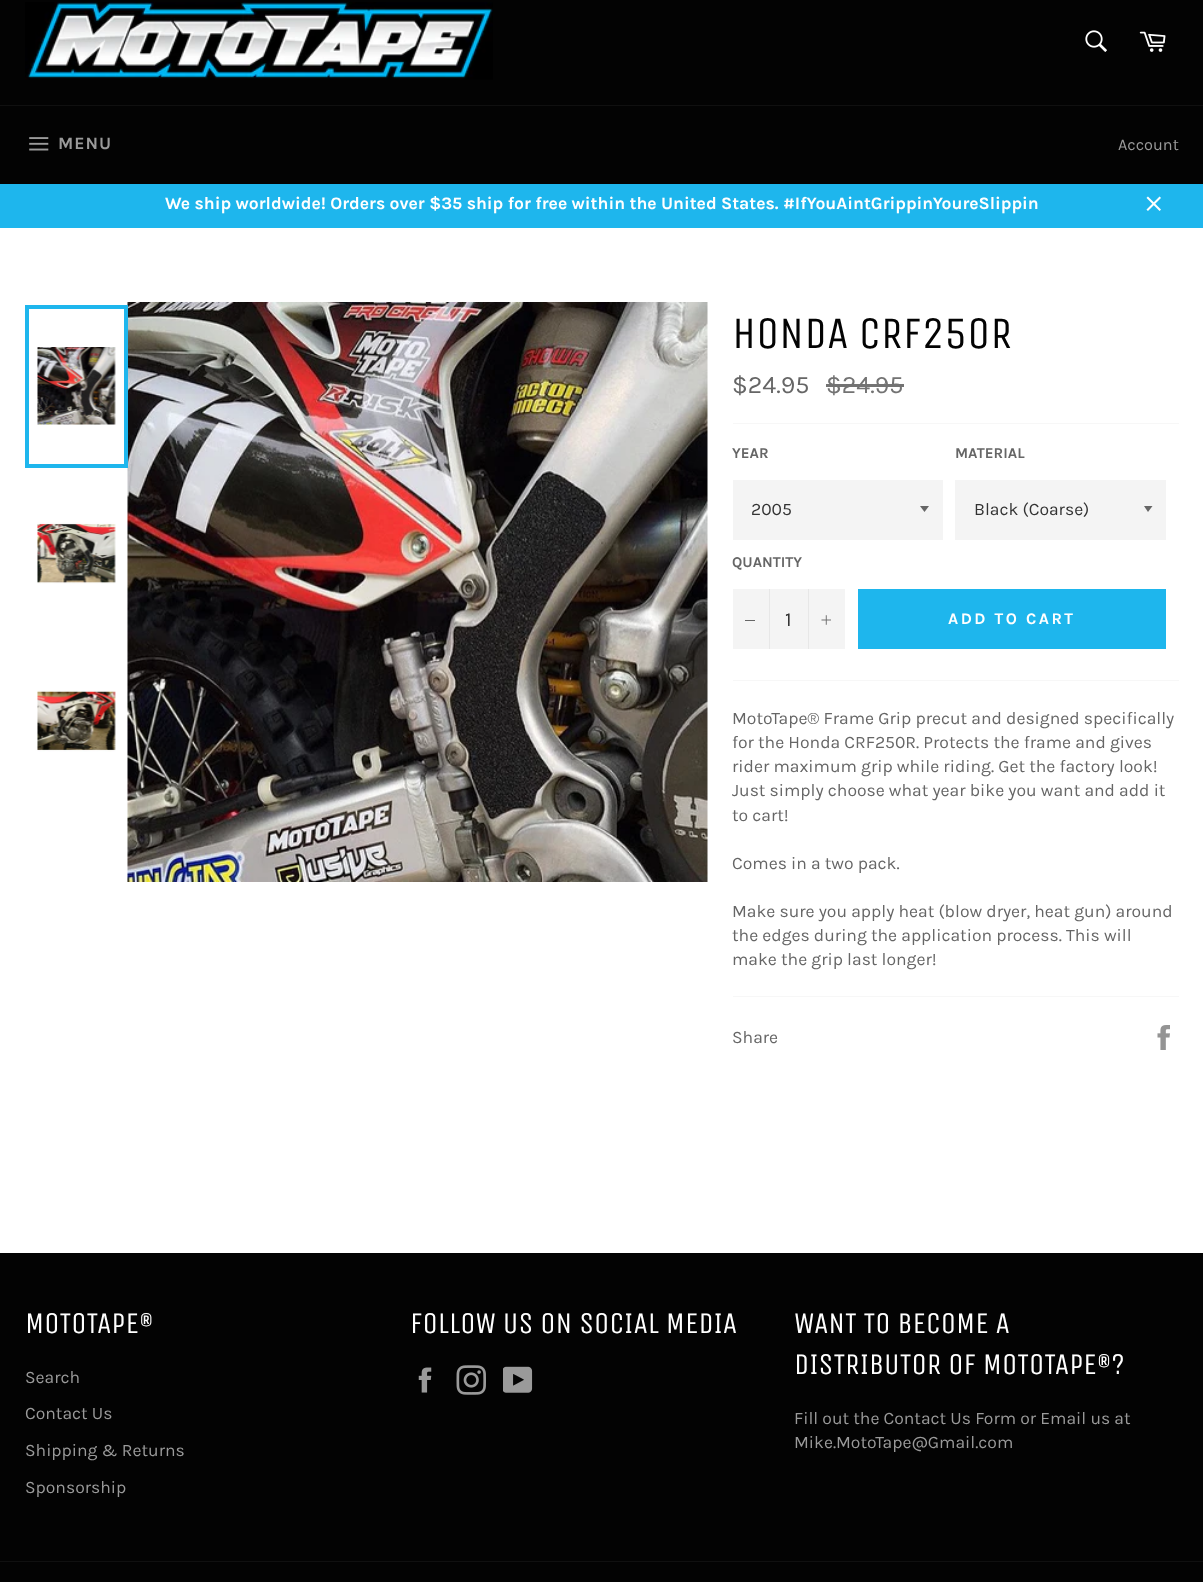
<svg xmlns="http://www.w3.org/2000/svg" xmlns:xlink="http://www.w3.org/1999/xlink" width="1203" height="1582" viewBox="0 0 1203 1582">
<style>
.cls-1{font:bold 17.5px Karla;letter-spacing:1px;fill:#9a9a9a}
.cls-2{font:16.25px Karla;fill:#9a9a9a}
.cls-3{font:bold 17.5px Karla;fill:#ffffff}
.cls-4{font:45px Unica One;fill:#030303}
.cls-5{font:25px Karla;fill:#666666}
.cls-6{font:25px Karla;fill:#737373}
.cls-7{font:bold 15px Karla;fill:#666666}
.cls-8{font:17.5px Karla;fill:#333333}
.cls-9{font:20px Karla;fill:#333333}
.cls-10{font:bold 16.25px Karla;letter-spacing:2.5px;fill:#ffffff}
.cls-11{font:17.5px Karla;fill:#666666}
.cls-12{font:30px Unica One;fill:#ffffff}
.cls-13{font:17.5px Karla;fill:#9a9a9a}
</style>
<rect width="100%" height="100%" fill="#030303"/>
<image xlink:href="image0.png" x="25" y="2" width="468" height="78"/>
<image xlink:href="image1.png" x="1085" y="30" width="22" height="22"/>
<image xlink:href="image2.png" x="1139" y="31" width="27" height="21"/>
<rect fill="#101010" x="0" y="105" width="1203" height="1"/>
<image xlink:href="image3.png" x="29" y="137" width="20" height="14"/>
<rect fill="#1eb6ed" x="0" y="184" width="1203" height="44"/>
<image xlink:href="image4.png" x="1146" y="196" width="15" height="15"/>
<rect fill="#ffffff" x="0" y="228" width="1203" height="1025"/>
<image xlink:href="image5.png" x="37" y="347" width="79" height="78"/>
<image xlink:href="image8.png" x="127" y="302" width="581" height="580"/>
<rect fill="none" stroke="#1eb6ed" stroke-width="4" x="27" y="307" width="99" height="159"/>
<image xlink:href="image6.png" x="37" y="522" width="79" height="62"/>
<image xlink:href="image7.png" x="37" y="690" width="79" height="62"/>
<rect fill="#737373" x="826" y="384" width="78" height="3"/>
<rect fill="#f7f7f7" x="733" y="423" width="446" height="1"/>
<rect fill="#f4f4f4" x="733" y="480" width="210" height="60"/>
<path fill="#666666" d="M920 506L924.5 512L929 506Z"/>
<rect fill="#f4f4f4" x="955" y="480" width="211" height="60"/>
<path fill="#666666" d="M1144 506L1148 512L1152.5 506Z"/>
<rect fill="#f4f4f4" x="733" y="589" width="112" height="60"/>
<rect fill="#e7e7e7" x="769" y="589" width="1" height="60"/>
<rect fill="#666666" x="745" y="620" width="10" height="1"/>
<rect fill="#e7e7e7" x="808" y="589" width="1" height="60"/>
<image xlink:href="image9.png" x="821" y="615" width="10" height="10"/>
<rect fill="#1eb6ed" x="858" y="589" width="308" height="60"/>
<rect fill="#f7f7f7" x="733" y="680" width="446" height="1"/>
<rect fill="#f7f7f7" x="733" y="996" width="446" height="1"/>
<image xlink:href="image10.png" x="1157" y="1025" width="13" height="25"/>
<image xlink:href="image11.png" x="418" y="1367" width="14" height="26"/>
<image xlink:href="image12.png" x="456" y="1365" width="30" height="30"/>
<image xlink:href="image13.png" x="503" y="1366" width="30" height="27"/>
<rect fill="#101010" x="0" y="1561" width="1203" height="1"/>
<text class="cls-1" x="58" y="149">MENU</text>
<text class="cls-2" x="1118" y="150">Account</text>
<text class="cls-3" x="165" y="209">We ship worldwide! Orders over $35 ship for free within the United States. #IfYouAintGrippinYoureSlippin</text>
<text class="cls-4" x="732" y="348">HONDA CRF250R</text>
<text class="cls-5" x="732" y="393">$24.95</text>
<text class="cls-6" x="826" y="393">$24.95</text>
<text class="cls-7" x="732" y="458">YEAR</text>
<text class="cls-8" x="751" y="515">2005</text>
<text class="cls-7" x="955" y="458">MATERIAL</text>
<text class="cls-8" x="974" y="515">Black (Coarse)</text>
<text class="cls-7" x="732" y="567">QUANTITY</text>
<text class="cls-9" x="785" y="626">1</text>
<text class="cls-10" x="948" y="624">ADD TO CART</text>
<text class="cls-11"><tspan x="732" y="724">MotoTape® Frame Grip precut and designed specifically</tspan><tspan x="732" y="748">for the Honda CRF250R. Protects the frame and gives</tspan><tspan x="732" y="772">rider maximum grip while riding. Get the factory look!</tspan><tspan x="732" y="796">Just simply choose what year bike you want and add it</tspan><tspan x="732" y="821">to cart!</tspan></text>
<text class="cls-11" x="732" y="869">Comes in a two pack.</text>
<text class="cls-11"><tspan x="732" y="917">Make sure you apply heat (blow dryer, heat gun) around</tspan><tspan x="732" y="941">the edges during the application process. This will</tspan><tspan x="732" y="965">make the grip last longer!</tspan></text>
<text class="cls-11" x="732" y="1043">Share</text>
<text class="cls-12" x="25" y="1333">MOTOTAPE®</text>
<text class="cls-13" x="25" y="1383">Search</text>
<text class="cls-13" x="25" y="1419">Contact Us</text>
<text class="cls-13" x="25" y="1456">Shipping &amp; Returns</text>
<text class="cls-13" x="25" y="1493">Sponsorship</text>
<text class="cls-12" x="410" y="1333">FOLLOW US ON SOCIAL MEDIA</text>
<text class="cls-12"><tspan x="794" y="1333">WANT TO BECOME A</tspan><tspan x="794" y="1374">DISTRIBUTOR OF MOTOTAPE®?</tspan></text>
<text class="cls-13"><tspan x="794" y="1424">Fill out the Contact Us Form or Email us at</tspan><tspan x="794" y="1448">Mike.MotoTape@Gmail.com</tspan></text>
</svg>
